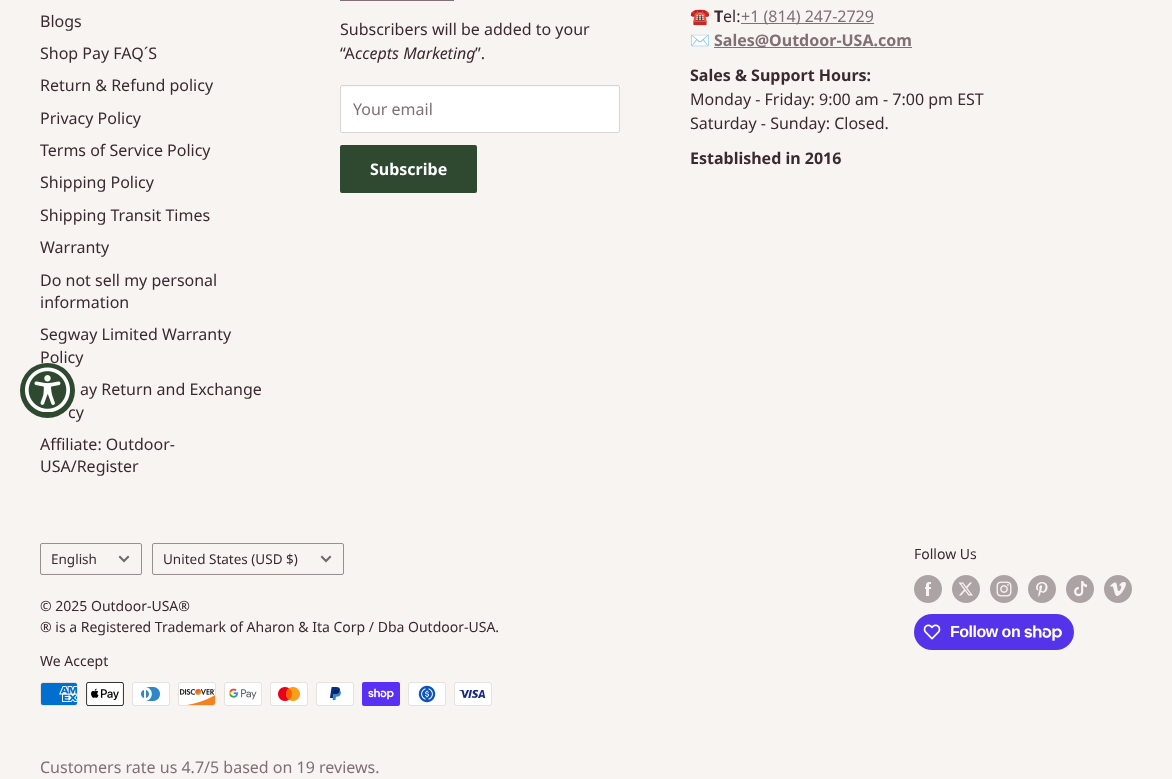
<svg xmlns="http://www.w3.org/2000/svg" xmlns:xlink="http://www.w3.org/1999/xlink" width="1172" height="779" viewBox="0 0 1172 779">
<style>
.cls-1{font:16px Noto Sans;fill:#3a2a2f}
.cls-2{font:italic 16px Noto Sans;fill:#3a2a2f}
.cls-3{font:16px Noto Sans;fill:#806f74}
.cls-4{font:bold 16px Noto Sans;fill:#ffffff}
.cls-5{font:bold 16px Noto Color Emoji;fill:#3a2a2f}
.cls-6{font:bold 16px Noto Sans;fill:#3a2a2f}
.cls-7{font:bold 16px Noto Sans;fill:#806f74}
.cls-8{font:13.5px Noto Sans;fill:#3a2a2f}
.cls-9{font:14px Noto Sans;fill:#3a2a2f}
.cls-10{font:bold 16px Liberation Sans;letter-spacing:-0.5px;fill:#ffffff}
</style>
<rect width="100%" height="100%" fill="#f7f4f2"/>
<rect fill="#806f74" x="340" y="0" width="114" height="1"/>
<rect fill="#ffffff" x="340" y="85" width="280" height="48" rx="2"/>
<path fill="#f9f8f7" d="M342 87H618C619 87 619 87 619 88C619 87 619 86 618 86H342H341V88C341 87 341 87 342 87Z"/>
<rect fill="none" stroke="#dcd5cf" x="340.5" y="85.5" width="279" height="47" rx="1.5"/>
<rect fill="#2e492f" x="340" y="145" width="137" height="48" rx="2"/>
<rect fill="#806f74" x="741" y="23" width="133" height="1"/>
<rect fill="#806f74" x="714" y="47" width="198" height="1"/>
<path fill="#f2efec" d="M41 572C41 573 41 574 42 574H140C141 574 141 573 141 572C141 573 141 573 140 573H42C41 573 41 573 41 572Z"/>
<rect fill="none" stroke="#998f91" x="40.5" y="543.5" width="101" height="31" rx="1.5"/>
<path fill="none" stroke="#73676a" stroke-width="2" stroke-linecap="square" d="M128 557L124 561L120 557"/>
<path fill="#f2efec" d="M153 572C153 573 153 574 154 574H343V572V573H154C153 573 153 573 153 572Z"/>
<rect fill="none" stroke="#998f91" x="152.5" y="543.5" width="191" height="31" rx="1.5"/>
<path fill="none" stroke="#73676a" stroke-width="2" stroke-linecap="square" d="M330 557L326 561L322 557"/>
<image xlink:href="image0.png" x="914" y="575" width="28" height="28"/>
<image xlink:href="image1.png" x="952" y="575" width="28" height="28"/>
<image xlink:href="image2.png" x="990" y="575" width="28" height="28"/>
<image xlink:href="image3.png" x="1028" y="575" width="28" height="28"/>
<image xlink:href="image4.png" x="1066" y="575" width="28" height="28"/>
<image xlink:href="image5.png" x="1104" y="575" width="28" height="28"/>
<rect fill="#5433eb" x="914" y="614" width="160" height="36" rx="18"/>
<image xlink:href="image6.png" x="923" y="624" width="18" height="16"/>
<image xlink:href="image7.png" x="1024" y="625" width="38" height="16"/>
<image xlink:href="image8.png" x="40" y="682" width="38" height="24"/>
<image xlink:href="image9.png" x="86" y="682" width="38" height="24"/>
<image xlink:href="image10.png" x="132" y="682" width="38" height="24"/>
<image xlink:href="image11.png" x="178" y="682" width="38" height="24"/>
<image xlink:href="image12.png" x="224" y="682" width="38" height="24"/>
<image xlink:href="image13.png" x="270" y="682" width="38" height="24"/>
<image xlink:href="image14.png" x="316" y="682" width="38" height="24"/>
<image xlink:href="image15.png" x="362" y="682" width="38" height="24"/>
<image xlink:href="image16.png" x="408" y="682" width="38" height="24"/>
<image xlink:href="image17.png" x="454" y="682" width="38" height="24"/>
<rect fill="#f5f5f5" x="0" y="777" width="2" height="2"/>
<text class="cls-1" x="40" y="27">Blogs</text>
<text class="cls-1" x="40" y="59">Shop Pay FAQ´S</text>
<text class="cls-1" x="40" y="91">Return &amp; Refund policy</text>
<text class="cls-1" x="40" y="124">Privacy Policy</text>
<text class="cls-1" x="40" y="156">Terms of Service Policy</text>
<text class="cls-1" x="40" y="188">Shipping Policy</text>
<text class="cls-1" x="40" y="221">Shipping Transit Times</text>
<text class="cls-1" x="40" y="253">Warranty</text>
<text class="cls-1"><tspan x="40" y="286">Do not sell my personal</tspan><tspan x="40" y="308">information</tspan></text>
<text class="cls-1"><tspan x="40" y="340">Segway Limited Warranty</tspan><tspan x="40" y="363">Policy</tspan></text>
<text class="cls-1" x="80" y="395">ay Return and Exchange</text>
<text class="cls-1" x="68" y="418">cy</text>
<text class="cls-1"><tspan x="40" y="450">Affiliate: Outdoor-</tspan><tspan x="40" y="472">USA/Register</tspan></text>
<text class="cls-1"><tspan x="340" y="35">Subscribers will be added to your</tspan><tspan x="340" y="59">“A</tspan></text>
<text class="cls-2" x="355" y="59">ccepts Marketing</text>
<text class="cls-1" x="475" y="59">”.</text>
<text class="cls-3" x="353" y="115">Your email</text>
<text class="cls-4" x="370" y="175">Subscribe</text>
<text class="cls-5" x="690" y="22">☎️</text>
<text class="cls-6" x="714" y="22">T</text>
<text class="cls-1" x="723" y="22">el:</text>
<text class="cls-3" x="741" y="22">+1 (814) 247-2729</text>
<text class="cls-5" x="690" y="46">✉️</text>
<text class="cls-7" x="714" y="46">Sales@Outdoor-USA.com</text>
<text class="cls-6" x="690" y="81">Sales &amp; Support Hours:</text>
<text class="cls-1"><tspan x="690" y="105">Monday - Friday: 9:00 am - 7:00 pm EST</tspan><tspan x="690" y="129">Saturday - Sunday: Closed.</tspan></text>
<text class="cls-6" x="690" y="164">Established in 2016</text>
<text class="cls-8" x="51" y="564">English</text>
<text class="cls-8" x="163" y="564">United States (USD $)</text>
<text class="cls-9"><tspan x="40" y="611">© 2025 Outdoor-USA®</tspan><tspan x="40" y="632">® is a Registered Trademark of Aharon &amp; Ita Corp / Dba Outdoor-USA.</tspan></text>
<text class="cls-9" x="914" y="559">Follow Us</text>
<text class="cls-10" x="950" y="637">Follow on</text>
<text class="cls-9" x="40" y="666">We Accept</text>
<circle fill="#2e492f" cx="47.5" cy="390.5" r="27.5"/>
<image xlink:href="image18.png" x="25" y="367" width="45" height="45"/>
<text class="cls-3" x="40" y="773">Customers rate us 4.7/5 based on 19 reviews.</text>
</svg>
